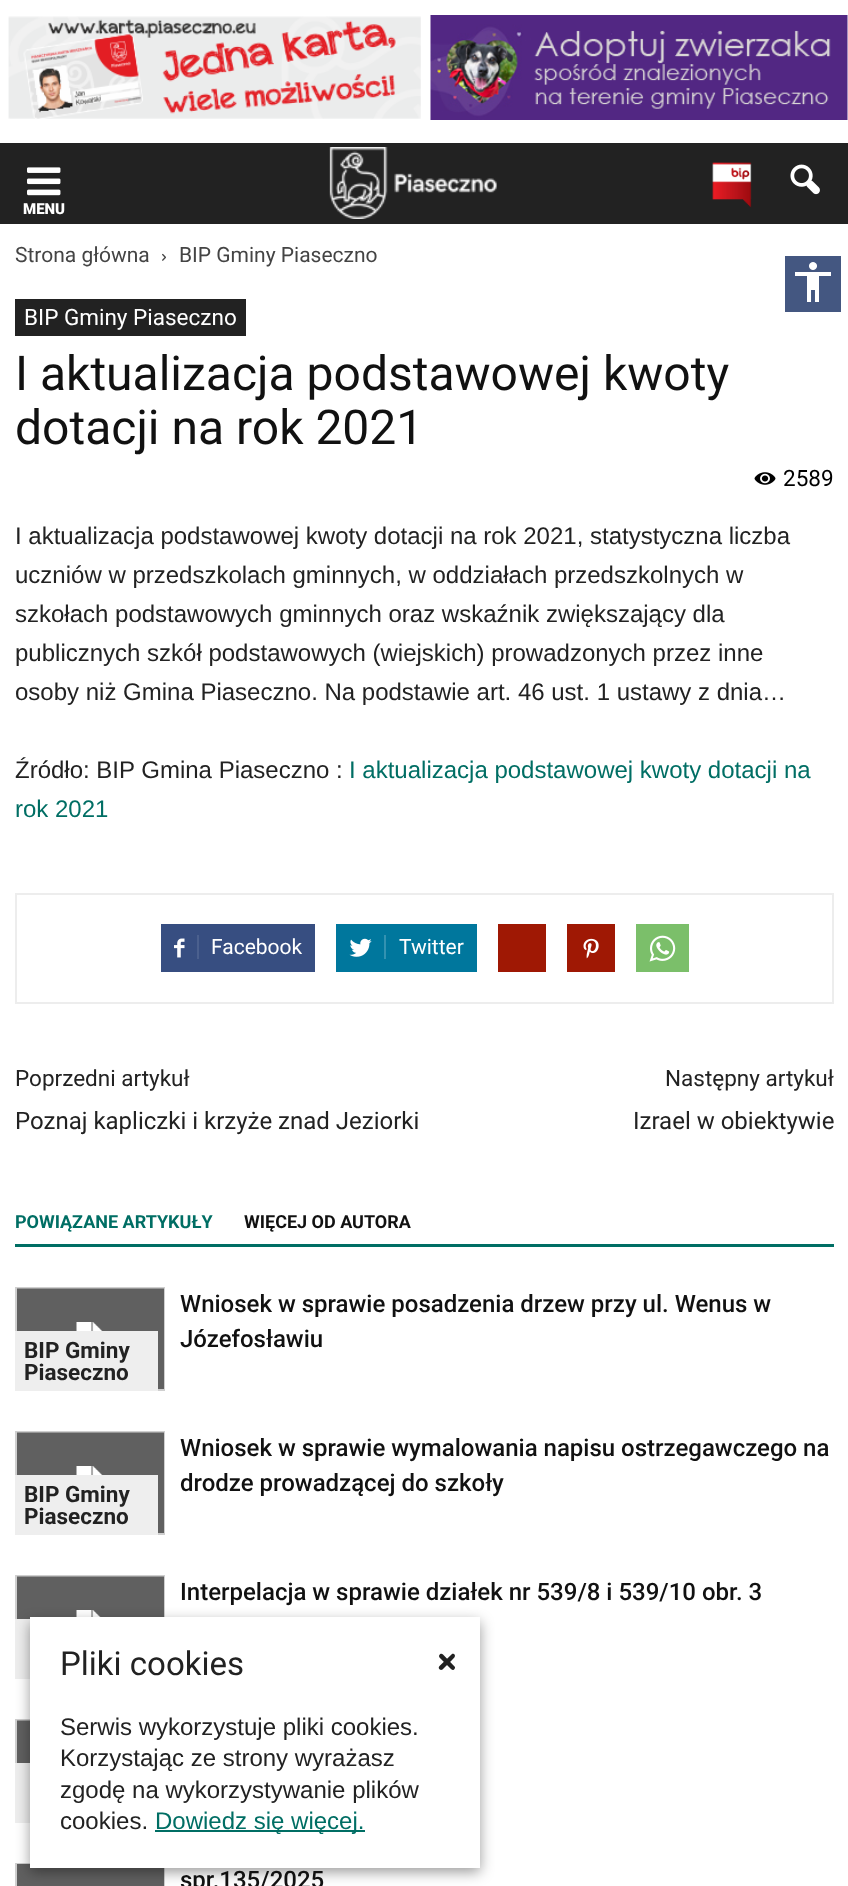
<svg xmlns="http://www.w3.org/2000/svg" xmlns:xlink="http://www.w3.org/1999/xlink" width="848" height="1886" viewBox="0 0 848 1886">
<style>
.cls-1{font:900 15px Roboto;fill:#ffffff}
.cls-2{font:21px Roboto;fill:#444444}
.cls-3{font:22.5px Roboto;fill:#ffffff}
.cls-4{font:48px Roboto;fill:#111111}
.cls-5{font:22.5px Roboto;fill:#000000}
.cls-6{font:24px Liberation Sans;fill:#222222}
.cls-7{font:24px Liberation Sans;fill:#006e64}
.cls-8{font:21px Roboto;fill:#ffffff}
.cls-9{font:22.5px Roboto;fill:#222222}
.cls-10{font:24px Roboto;fill:#222222}
.cls-11{font:bold 18px Roboto;fill:#006e64}
.cls-12{font:bold 18px Roboto;fill:#111111}
.cls-13{font:500 24px Roboto;fill:#111111}
.cls-14{font:bold 22.5px Roboto;fill:#222222}
.cls-15{font:33px Roboto;fill:#222222}
</style>
<rect width="100%" height="100%" fill="#ffffff"/>
<image xlink:href="image0.png" x="8" y="16" width="413" height="103"/>
<image xlink:href="image1.png" x="430" y="15" width="418" height="105"/>
<rect fill="#222222" x="0" y="143" width="848" height="81"/>
<image xlink:href="image2.png" x="27" y="167" width="34" height="29"/>
<image xlink:href="image3.png" x="329" y="147" width="168" height="72"/>
<image xlink:href="image4.png" x="712" y="162" width="40" height="46"/>
<image xlink:href="image5.png" x="790" y="164" width="30" height="31"/>
<image xlink:href="image6.png" x="162" y="253" width="4" height="8"/>
<rect fill="#222222" x="15" y="299" width="231" height="37"/>
<image xlink:href="image7.png" x="754" y="472" width="22" height="13"/>
<rect fill="none" stroke="#ededed" stroke-width="2" x="16" y="894" width="817" height="109"/>
<rect fill="#374e81" x="161" y="924" width="154" height="48"/>
<image xlink:href="image8.png" x="174" y="938" width="11" height="20"/>
<rect fill="#4b608e" x="197" y="935" width="2" height="24"/>
<rect fill="#00779d" x="336" y="924" width="141" height="48"/>
<image xlink:href="image9.png" x="349" y="938" width="23" height="19"/>
<rect fill="#3392b1" x="384" y="935" width="2" height="24"/>
<rect fill="#9f1804" x="498" y="924" width="48" height="48"/>
<rect fill="#9f1804" x="567" y="924" width="48" height="48"/>
<image xlink:href="image10.png" x="583" y="938" width="16" height="21"/>
<rect fill="#7bbf6a" x="636" y="924" width="53" height="48"/>
<image xlink:href="image11.png" x="649" y="935" width="27" height="27"/>
<rect fill="#006e64" x="15" y="1244" width="819" height="3"/>
<rect fill="none" stroke="#cfcfcf" stroke-width="2" x="16" y="1288" width="148" height="102"/>
<image xlink:href="image12.png" x="17" y="1288" width="147" height="101"/>
<rect fill="#eeeeee" x="15" y="1331" width="143" height="60"/>
<rect fill="none" stroke="#cfcfcf" stroke-width="2" x="16" y="1432" width="148" height="102"/>
<image xlink:href="image12.png" x="17" y="1432" width="147" height="101"/>
<rect fill="#eeeeee" x="15" y="1475" width="143" height="60"/>
<rect fill="none" stroke="#cfcfcf" stroke-width="2" x="16" y="1576" width="148" height="102"/>
<image xlink:href="image13.png" x="17" y="1576" width="147" height="43"/>
<rect fill="#eeeeee" x="15" y="1619" width="15" height="60"/>
<rect fill="none" stroke="#cfcfcf" stroke-width="2" x="16" y="1720" width="148" height="102"/>
<image xlink:href="image14.png" x="17" y="1720" width="13" height="43"/>
<rect fill="#eeeeee" x="15" y="1763" width="15" height="60"/>
<rect fill="none" stroke="#cfcfcf" stroke-width="2" x="16" y="1864" width="148" height="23"/>
<rect fill="#606060" x="17" y="1864" width="147" height="22"/>
<rect fill="#445781" x="785" y="256" width="56" height="56"/>
<image xlink:href="image15.png" x="795" y="262" width="36" height="40"/>
<rect fill="#000000" fill-opacity="0.4" filter="blur(7px)" x="30" y="1622" width="450" height="250"/>
<rect fill="#ffffff" x="30" y="1617" width="450" height="251"/>
<path fill="#222222" d="M443 1654.5L455 1667C455 1667.5 455 1668.5 454.5 1669C453 1671.5 450.5 1668.5 449.5 1667.5L439.5 1657.5C438 1655 441 1652.5 443 1654.5Z"/>
<path fill="#222222" d="M439.5 1666L452 1654C452.5 1653.5 453.5 1654 454 1654C456.5 1656 453.5 1658.5 452.5 1659.5L442.5 1669.5C440 1671 437.5 1668 439.5 1666Z"/>
<rect fill="#006e64" x="155" y="1830" width="210" height="2"/>
<text class="cls-1" x="23" y="214">MENU</text>
<text class="cls-2" x="15" y="262">Strona główna</text>
<text class="cls-2" x="179" y="262">BIP Gminy Piaseczno</text>
<text class="cls-3" x="24" y="325">BIP Gminy Piaseczno</text>
<text class="cls-4"><tspan x="15" y="390">I aktualizacja podstawowej kwoty</tspan><tspan x="15" y="444">dotacji na rok 2021</tspan></text>
<text class="cls-5" x="783" y="486">2589</text>
<text class="cls-6"><tspan x="15" y="544">I aktualizacja podstawowej kwoty dotacji na rok 2021, statystyczna liczba</tspan><tspan x="15" y="583">uczniów w przedszkolach gminnych, w oddziałach przedszkolnych w</tspan><tspan x="15" y="622">szkołach podstawowych gminnych oraz wskaźnik zwiększający dla</tspan><tspan x="15" y="661">publicznych szkół podstawowych (wiejskich) prowadzonych przez inne</tspan><tspan x="15" y="700">osoby niż Gmina Piaseczno. Na podstawie art. 46 ust. 1 ustawy z dnia…</tspan></text>
<text class="cls-6" x="15" y="778">Źródło: BIP Gmina Piaseczno :</text>
<text class="cls-7" x="349" y="778">I aktualizacja podstawowej kwoty dotacji na</text>
<text class="cls-7" x="15" y="817">rok 2021</text>
<text class="cls-8" x="211" y="954">Facebook</text>
<text class="cls-8" x="399" y="954">Twitter</text>
<text class="cls-9" x="15" y="1086">Poprzedni artykuł</text>
<text class="cls-10" x="15" y="1129">Poznaj kapliczki i krzyże znad Jeziorki</text>
<text class="cls-9" x="665" y="1086">Następny artykuł</text>
<text class="cls-10" x="633" y="1129">Izrael w obiektywie</text>
<text class="cls-11" x="15" y="1228">POWIĄZANE ARTYKUŁY</text>
<text class="cls-12" x="244" y="1228">WIĘCEJ OD AUTORA</text>
<text class="cls-13"><tspan x="180" y="1312">Wniosek w sprawie posadzenia drzew przy ul. Wenus w</tspan><tspan x="180" y="1347">Józefosławiu</tspan></text>
<text class="cls-14"><tspan x="24" y="1358">BIP Gminy</tspan><tspan x="24" y="1380">Piaseczno</tspan></text>
<text class="cls-13"><tspan x="180" y="1456">Wniosek w sprawie wymalowania napisu ostrzegawczego na</tspan><tspan x="180" y="1491">drodze prowadzącej do szkoły</tspan></text>
<text class="cls-14"><tspan x="24" y="1502">BIP Gminy</tspan><tspan x="24" y="1524">Piaseczno</tspan></text>
<text class="cls-13" x="180" y="1600">Interpelacja w sprawie działek nr 539/8 i 539/10 obr. 3</text>
<text class="cls-13" x="180" y="1888">spr.135/2025</text>
<text class="cls-15" x="60" y="1675">Pliki cookies</text>
<text class="cls-6"><tspan x="60" y="1735">Serwis wykorzystuje pliki cookies.</tspan><tspan x="60" y="1766">Korzystając ze strony wyrażasz</tspan><tspan x="60" y="1798">zgodę na wykorzystywanie plików</tspan><tspan x="60" y="1829">cookies.</tspan></text>
<text class="cls-7" x="155" y="1829">Dowiedz się więcej.</text>
</svg>
